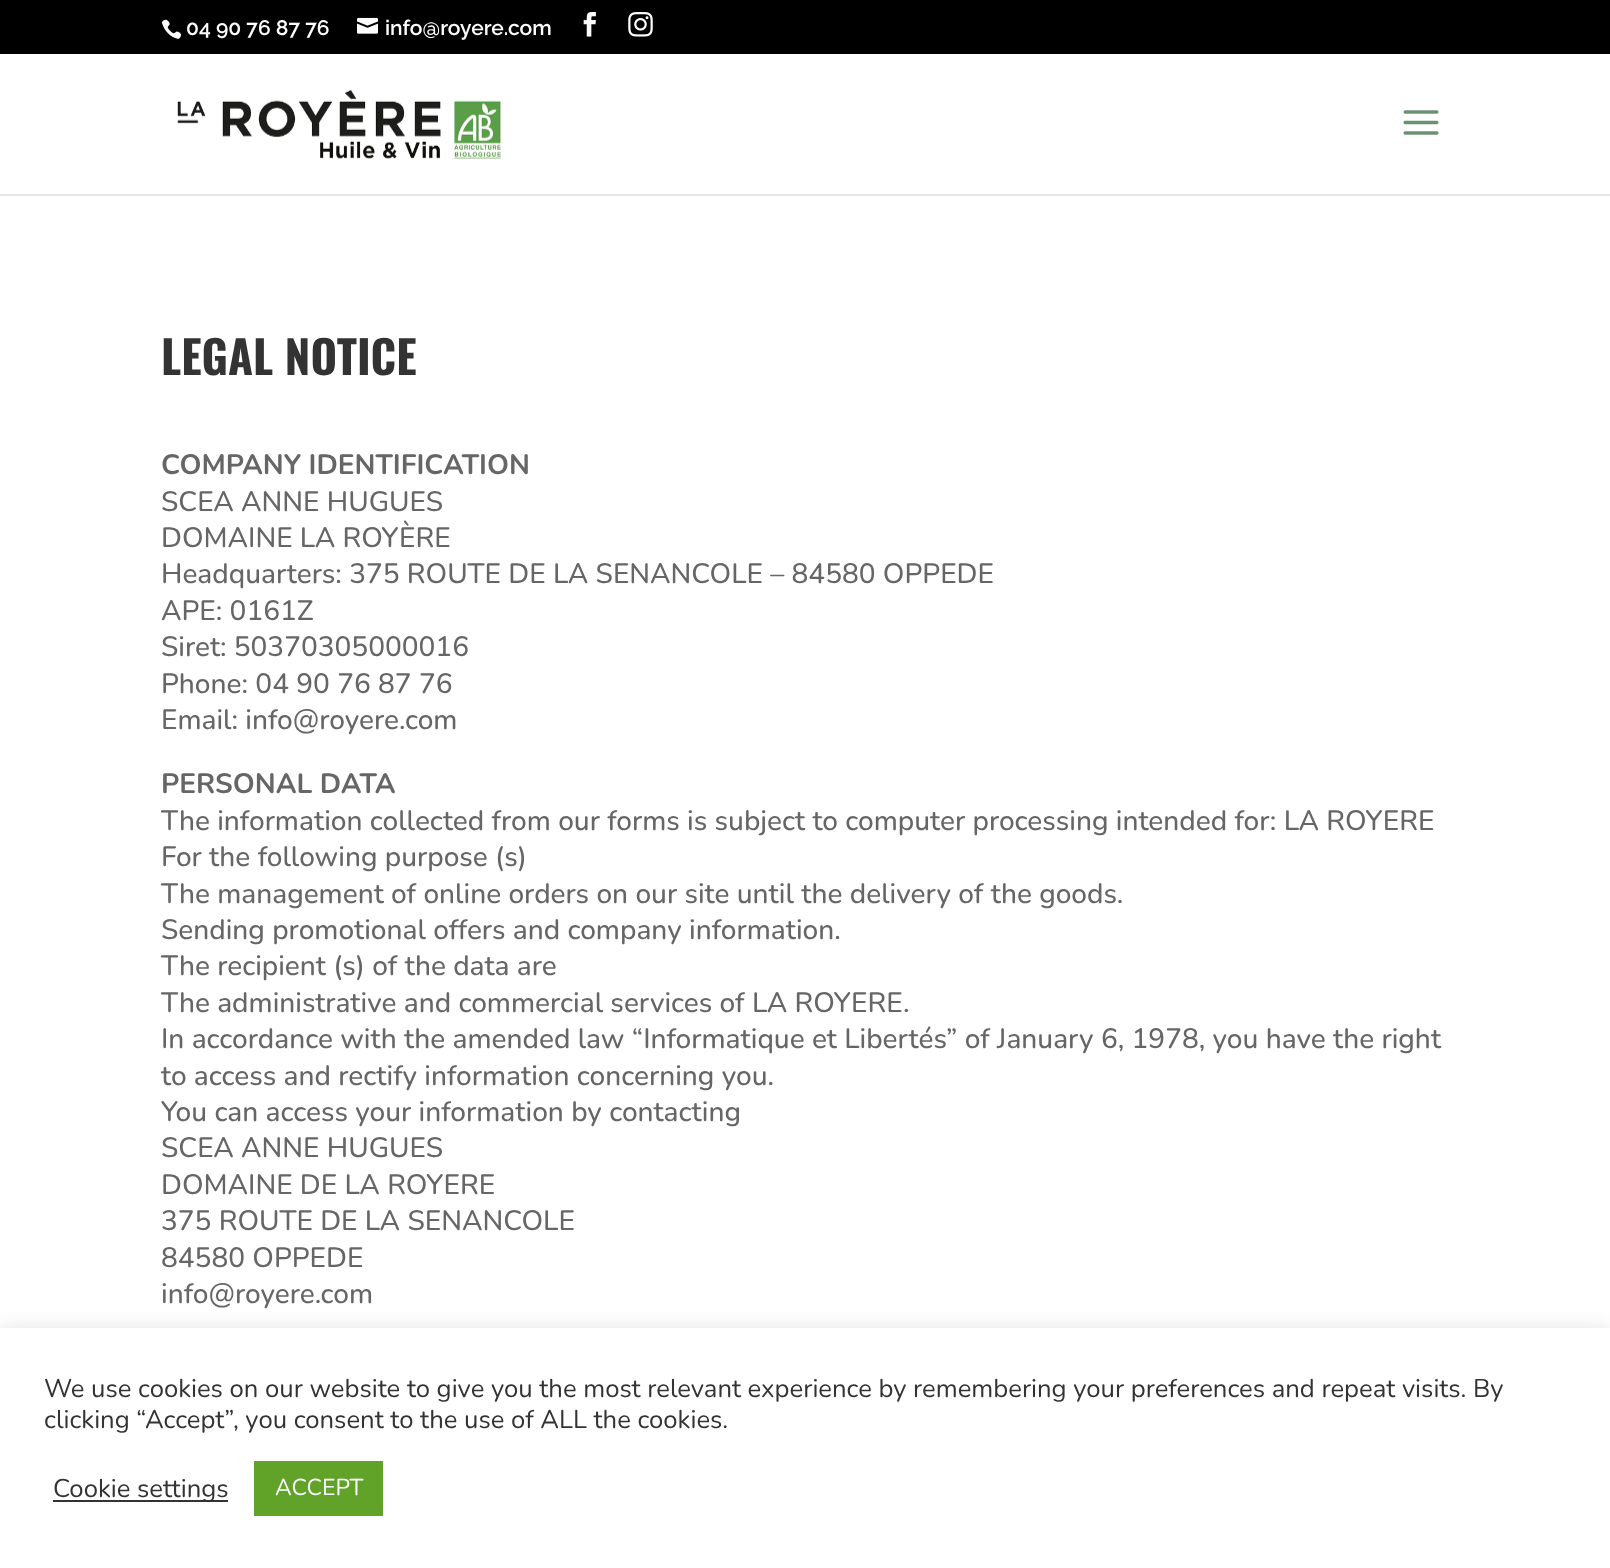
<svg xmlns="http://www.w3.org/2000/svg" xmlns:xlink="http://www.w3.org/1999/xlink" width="1610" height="1568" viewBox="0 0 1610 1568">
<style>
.cls-1{font:600 21px Raleway;fill:#ffffff}
.cls-2{font:bold 45.5px Oswald;fill:#333333}
.cls-3{font:bold 28px Nunito;fill:#666666}
.cls-4{font:500 28px Nunito;fill:#666666}
.cls-5{font:25.67px Nunito;fill:#333333}
.cls-6{font:23px Nunito;fill:#ffffff}
</style>
<rect width="100%" height="100%" fill="#ffffff"/>
<rect fill="#000000" x="0" y="0" width="1610" height="54"/>
<image xlink:href="image0.png" x="161" y="19" width="21" height="20"/>
<image xlink:href="image1.png" x="357" y="17" width="21" height="17"/>
<image xlink:href="image2.png" x="583" y="12" width="13" height="25"/>
<image xlink:href="image3.png" x="628" y="12" width="25" height="25"/>
<rect fill="#e6e6e6" x="0" y="194" width="1610" height="2"/>
<image xlink:href="image4.png" x="177" y="89" width="324" height="70"/>
<image xlink:href="image5.png" x="1403" y="110" width="36" height="25"/>
<rect fill="#acabab" fill-opacity="0.3" filter="blur(9px)" x="0" y="1327" width="1610" height="239"/>
<rect fill="#ffffff" x="0" y="1328" width="1610" height="240"/>
<rect fill="#333333" x="53" y="1500" width="175" height="2"/>
<rect fill="#61a229" x="254" y="1461" width="129" height="55"/>
<text class="cls-1" x="186" y="35">04 90 76 87 76</text>
<text class="cls-1" x="385" y="35">info@royere.com</text>
<text class="cls-2" x="161" y="375">LEGAL NOTICE</text>
<text class="cls-3" x="161" y="474">COMPANY IDENTIFICATION</text>
<text class="cls-4"><tspan x="161" y="511">SCEA ANNE HUGUES</tspan><tspan x="161" y="547">DOMAINE LA ROYÈRE</tspan><tspan x="161" y="583">Headquarters: 375 ROUTE DE LA SENANCOLE – 84580 OPPEDE</tspan><tspan x="161" y="620">APE: 0161Z</tspan><tspan x="161" y="656">Siret: 50370305000016</tspan><tspan x="161" y="693">Phone: 04 90 76 87 76</tspan><tspan x="161" y="729">Email: info@royere.com</tspan></text>
<text class="cls-3" x="161" y="793">PERSONAL DATA</text>
<text class="cls-4"><tspan x="161" y="830">The information collected from our forms is subject to computer processing intended for: LA ROYERE</tspan><tspan x="161" y="866">For the following purpose (s)</tspan><tspan x="161" y="903">The management of online orders on our site until the delivery of the goods.</tspan><tspan x="161" y="939">Sending promotional offers and company information.</tspan><tspan x="161" y="975">The recipient (s) of the data are</tspan><tspan x="161" y="1012">The administrative and commercial services of LA ROYERE.</tspan><tspan x="161" y="1048">In accordance with the amended law “Informatique et Libertés” of January 6, 1978, you have the right</tspan><tspan x="161" y="1085">to access and rectify information concerning you.</tspan><tspan x="161" y="1121">You can access your information by contacting</tspan><tspan x="161" y="1157">SCEA ANNE HUGUES</tspan><tspan x="161" y="1194">DOMAINE DE LA ROYERE</tspan><tspan x="161" y="1230">375 ROUTE DE LA SENANCOLE</tspan><tspan x="161" y="1267">84580 OPPEDE</tspan><tspan x="161" y="1303">info@royere.com</tspan></text>
<text class="cls-5"><tspan x="44" y="1397">We use cookies on our website to give you the most relevant experience by remembering your preferences and repeat visits. By</tspan><tspan x="44" y="1428">clicking “Accept”, you consent to the use of ALL the cookies.</tspan></text>
<text class="cls-5" x="53" y="1497">Cookie settings</text>
<text class="cls-6" x="275" y="1495">ACCEPT</text>
</svg>
